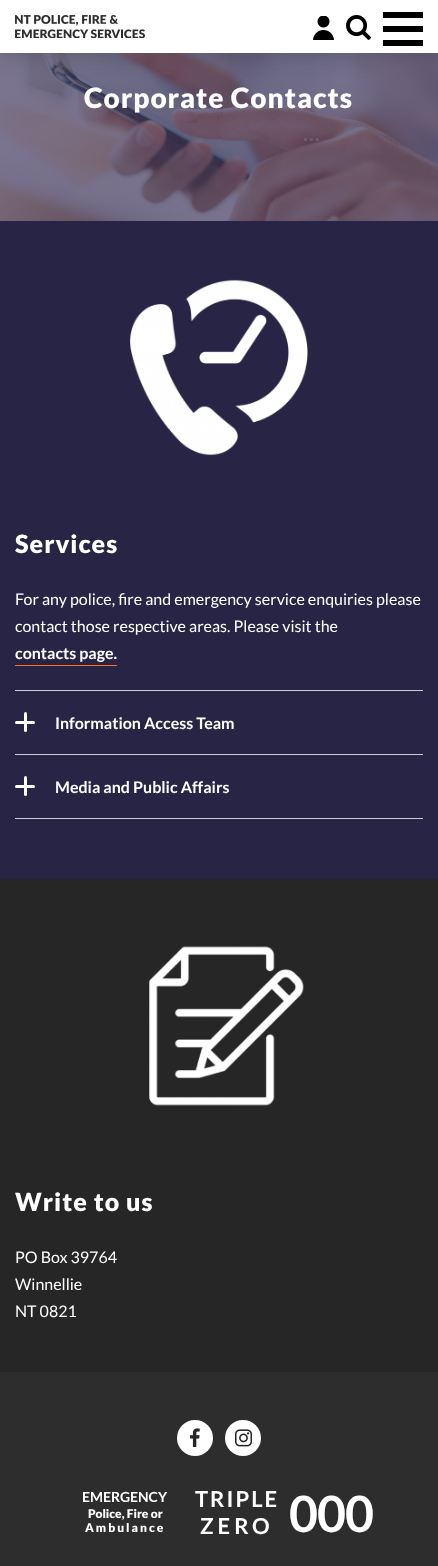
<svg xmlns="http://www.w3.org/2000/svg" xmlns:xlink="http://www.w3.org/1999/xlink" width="438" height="1566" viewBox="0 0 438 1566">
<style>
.cls-1{font:900 28px Lato;letter-spacing:1px;fill:#ffffff}
.cls-2{font:900 25px Lato;letter-spacing:1px;fill:#ffffff}
.cls-3{font:16px Lato;fill:#ffffff}
.cls-4{font:bold 16px Lato;fill:#ffffff}
.cls-5{font:bold 14px Lato;fill:#ffffff}
.cls-6{font:900 12px Lato;fill:#ffffff}
.cls-7{font:900 12px Lato;letter-spacing:2px;fill:#ffffff}
.cls-8{font:bold 22px Lato;letter-spacing:2px;fill:#ffffff}
.cls-9{font:bold 22px Lato;letter-spacing:4px;fill:#ffffff}
.cls-10{font:bold 50px Lato;letter-spacing:-1px;fill:#ffffff}
.cls-11{font:bold 22px Lato;fill:#6e5c70}
</style>
<rect width="100%" height="100%" fill="#2d2d2d"/>
<image xlink:href="image3.png" x="0" y="53" width="438" height="168"/>
<rect fill="#000000" fill-opacity="0.15" filter="blur(10px)" x="0" y="5" width="438" height="53"/>
<rect fill="#ffffff" x="0" y="0" width="438" height="53"/>
<image xlink:href="image0.png" x="15" y="15" width="130" height="23"/>
<image xlink:href="image1.png" x="313" y="16" width="21" height="24"/>
<image xlink:href="image2.png" x="346" y="15" width="25" height="25"/>
<rect fill="#000000" x="383" y="12" width="40" height="6"/>
<rect fill="#000000" x="383" y="26" width="40" height="6"/>
<rect fill="#000000" x="383" y="40" width="40" height="6"/>
<rect fill="#272445" x="0" y="221" width="438" height="658"/>
<image xlink:href="image4.png" x="130" y="279" width="178" height="177"/>
<rect fill="#ff6d22" x="15" y="665" width="102" height="1"/>
<rect fill="#cccccc" x="15" y="818" width="408" height="1"/>
<rect fill="#cccccc" x="15" y="690" width="408" height="1"/>
<rect fill="#ffffff" x="15" y="721" width="20" height="3" rx="1.5"/>
<rect fill="#ffffff" x="24" y="712" width="3" height="20" rx="1.5"/>
<rect fill="#cccccc" x="15" y="754" width="408" height="1"/>
<rect fill="#ffffff" x="15" y="785" width="20" height="3" rx="1.5"/>
<rect fill="#ffffff" x="24" y="776" width="3" height="20" rx="1.5"/>
<rect fill="#262626" x="0" y="879" width="438" height="493"/>
<image xlink:href="image5.png" x="149" y="946" width="155" height="160"/>
<circle fill="#ffffff" cx="195" cy="1438" r="18"/>
<image xlink:href="image6.png" x="190" y="1428" width="10" height="19"/>
<circle fill="#ffffff" cx="243" cy="1438" r="18"/>
<image xlink:href="image7.png" x="235" y="1429" width="17" height="18"/>
<text class="cls-1" x="84" y="108">Corporate Contacts</text>
<text class="cls-2" x="15" y="553">Services</text>
<text class="cls-3"><tspan x="15" y="605">For any police, fire and emergency service enquiries please</tspan><tspan x="15" y="632">contact those respective areas. Please visit the</tspan></text>
<text class="cls-4" x="15" y="659">contacts page.</text>
<text class="cls-4" x="55" y="729">Information Access Team</text>
<text class="cls-4" x="55" y="793">Media and Public Affairs</text>
<text class="cls-2" x="15" y="1211">Write to us</text>
<text class="cls-3"><tspan x="15" y="1263">PO Box 39764</tspan><tspan x="15" y="1290">Winnellie</tspan><tspan x="15" y="1317">NT 0821</tspan></text>
<text class="cls-5" x="82" y="1502">EMERGENCY</text>
<text class="cls-6" x="88" y="1518">Police, Fire or</text>
<text class="cls-7" x="85" y="1532">Ambulance</text>
<text class="cls-8" x="195" y="1507">TRIPLE</text>
<text class="cls-9" x="200" y="1534">ZERO</text>
<text class="cls-10" x="289" y="1532">000</text>
<text class="cls-11" x="303" y="141">…</text>
</svg>
